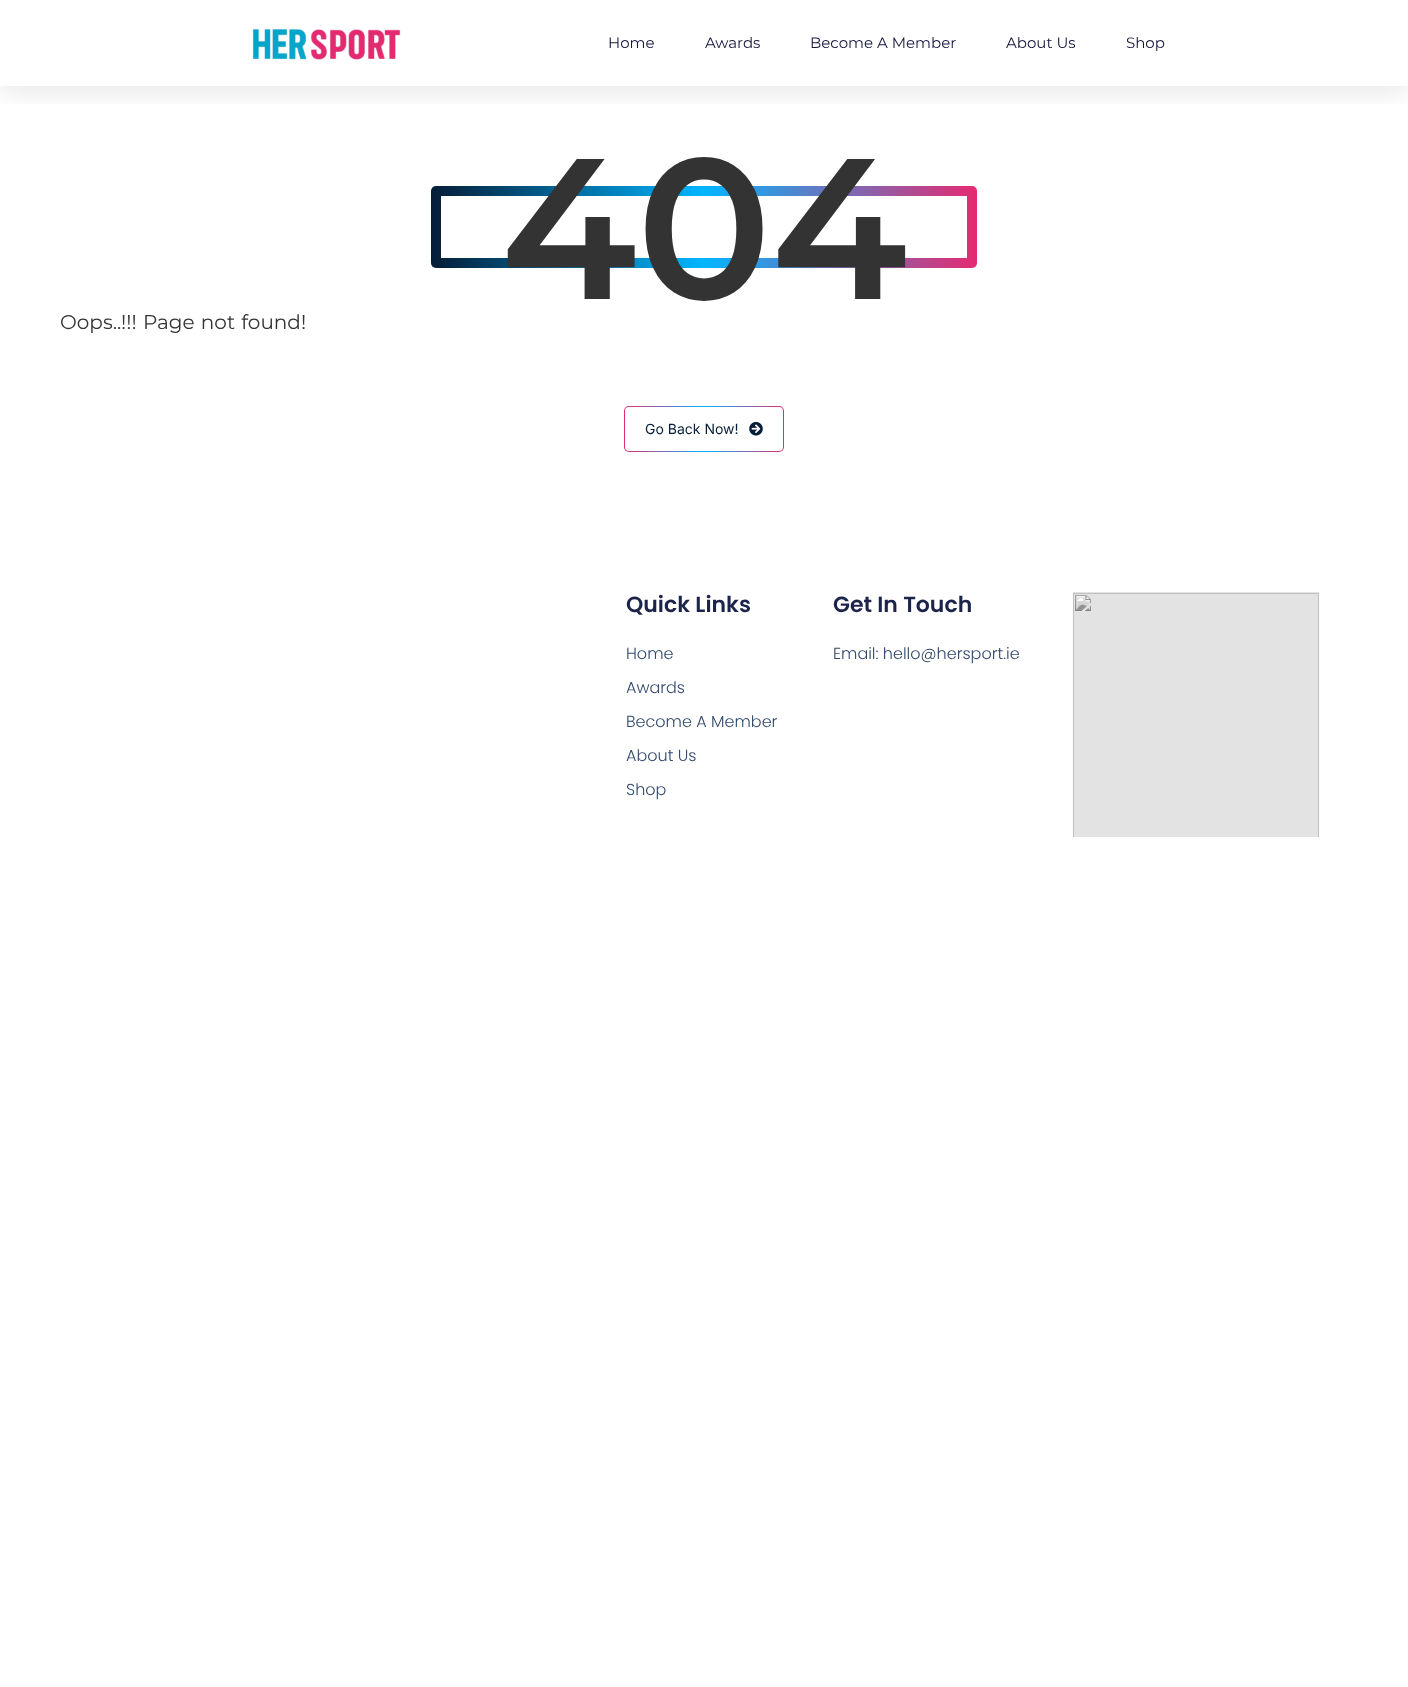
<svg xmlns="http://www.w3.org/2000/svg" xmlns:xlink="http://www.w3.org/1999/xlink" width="1408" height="1687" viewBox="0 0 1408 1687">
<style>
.cls-1{font:15px Montserrat;fill:#16163f}
.cls-2{font:600 200px Montserrat;fill:#333333}
.cls-3{font:20px Montserrat;fill:#333333}
.cls-4{font:14px Inter;fill:#051d37}
.cls-5{font:600 22px Poppins;fill:#1c244b}
.cls-6{font:300 16px Poppins;fill:#324a6d}
</style>
<defs>
<clipPath id="clip1"><rect x="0" y="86" width="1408" height="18"/></clipPath>
<linearGradient id="g1" gradientUnits="userSpaceOnUse" x1="431" y1="227" x2="977" y2="227"><stop offset="0" stop-color="#051d37"/><stop offset="0.5" stop-color="#02b5ff"/><stop offset="1" stop-color="#e52a71"/></linearGradient>
<linearGradient id="g2" gradientUnits="userSpaceOnUse" x1="624" y1="429" x2="784" y2="429"><stop offset="0" stop-color="#e52a71"/><stop offset="0.5" stop-color="#02b5ff"/><stop offset="1" stop-color="#e52a71"/></linearGradient>
</defs>
<rect width="100%" height="100%" fill="#ffffff"/>
<g clip-path="url(#clip1)">
<rect fill="#000000" fill-opacity="0.1" filter="blur(15px)" x="0" y="5" width="1408" height="86"/>
</g>
<image xlink:href="image0.png" x="252" y="29" width="149" height="31"/>
<rect fill="url(#g1)" x="431" y="186" width="546" height="82" rx="5"/>
<rect fill="#ffffff" x="441" y="196" width="526" height="62"/>
<rect fill="url(#g2)" x="624" y="406" width="160" height="46" rx="5"/>
<rect fill="#ffffff" x="625" y="407" width="158" height="44" rx="4"/>
<image xlink:href="image1.png" x="749" y="422" width="14" height="14"/>
<image xlink:href="image2.png" x="1073" y="592" width="246" height="245"/>
<text class="cls-1" x="608" y="48">Home</text>
<text class="cls-1" x="705" y="48">Awards</text>
<text class="cls-1" x="810" y="48">Become A Member</text>
<text class="cls-1" x="1006" y="48">About Us</text>
<text class="cls-1" x="1126" y="48">Shop</text>
<text class="cls-2" x="501" y="299">404</text>
<text class="cls-3" x="60" y="329" word-spacing="1">Oops..!!! Page not found!</text>
<text class="cls-4" x="645" y="434">Go Back Now!</text>
<text class="cls-5" x="626" y="612">Quick Links</text>
<text class="cls-6" x="626" y="659">Home</text>
<text class="cls-6" x="626" y="693">Awards</text>
<text class="cls-6" x="626" y="727">Become A Member</text>
<text class="cls-6" x="626" y="761">About Us</text>
<text class="cls-6" x="626" y="795">Shop</text>
<text class="cls-5" x="833" y="612">Get In Touch</text>
<text class="cls-6" x="833" y="659">Email: hello@hersport.ie</text>
</svg>
